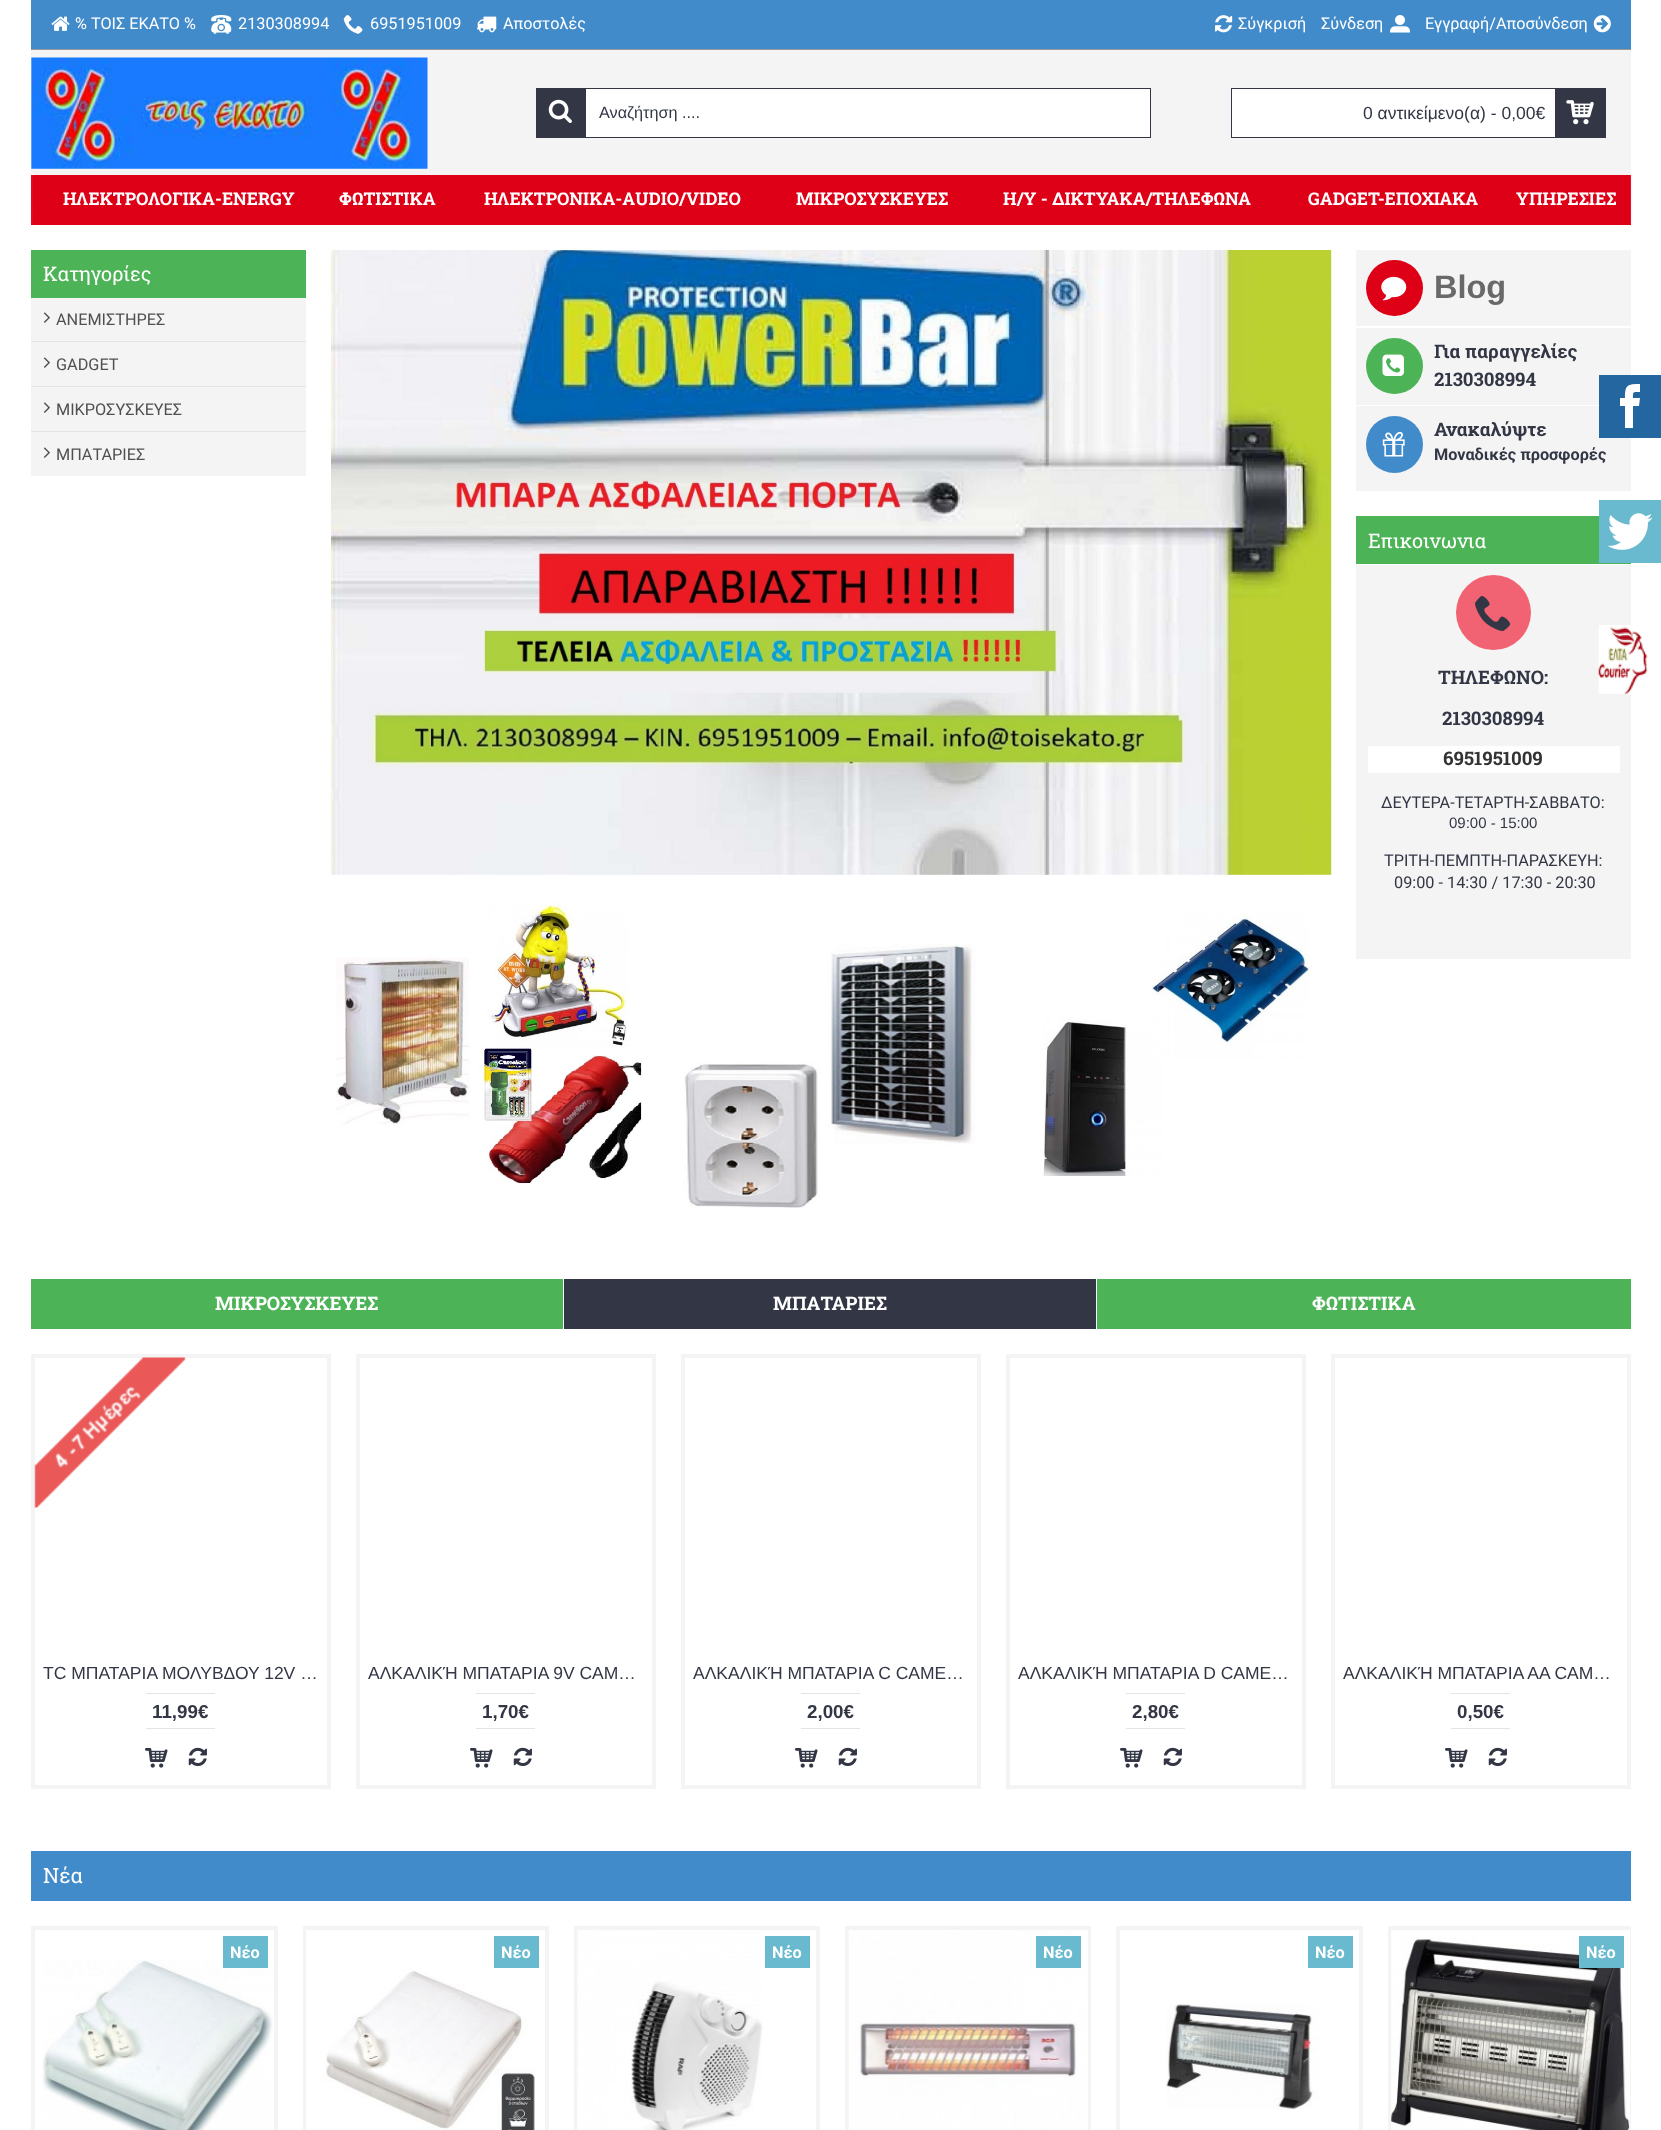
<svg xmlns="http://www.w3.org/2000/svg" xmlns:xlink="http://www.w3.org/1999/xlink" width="1661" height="2130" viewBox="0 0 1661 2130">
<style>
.cls-1{font:16.25px Roboto;fill:#ffffff}
.cls-2{font:16.25px Liberation Sans;fill:#333745}
.cls-3{font:17.5px Liberation Sans;fill:#333745}
.cls-4{font:bold 17.5px Roboto Slab;fill:#ffffff}
.cls-5{font:20px Roboto Slab;fill:#ffffff}
.cls-6{font:16.25px Roboto;fill:#505050}
.cls-7{font:bold 32.5px Liberation Sans;fill:#696969}
.cls-8{font:bold 18.75px Roboto Slab;fill:#333745}
.cls-9{font:bold 16.25px Roboto;fill:#333745}
.cls-10{font:bold 18.75px Roboto Slab;fill:#333333}
.cls-11{font:16.25px Roboto;fill:#333745}
.cls-12{font:15px Liberation Sans;fill:#333745}
.cls-13{font:bold 18.75px Roboto Slab;fill:#ffffff}
.cls-14{font:bold 18.75px Liberation Sans;fill:#333745}
.cls-15{font:21px Roboto Slab;fill:#ffffff}
.cls-16{font:bold 16.25px Roboto;fill:#ffffff}
</style>
<defs>
<clipPath id="clip1"><rect x="31" y="1851" width="1600" height="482"/></clipPath>
</defs>
<rect width="100%" height="100%" fill="#ffffff"/>
<rect fill="#f4f4f4" x="31" y="50" width="1600" height="125"/>
<rect fill="#428bca" x="31" y="0" width="1600" height="49"/>
<rect fill="#999999" x="31" y="49" width="1600" height="1"/>
<image xlink:href="image0.png" x="51" y="16" width="19" height="15"/>
<image xlink:href="image1.png" x="211" y="15" width="21" height="19"/>
<image xlink:href="image2.png" x="343" y="15" width="20" height="19"/>
<image xlink:href="image3.png" x="477" y="16" width="20" height="17"/>
<image xlink:href="image4.png" x="1215" y="15" width="18" height="18"/>
<image xlink:href="image5.png" x="1390" y="15" width="20" height="18"/>
<image xlink:href="image6.png" x="1593" y="15" width="18" height="18"/>
<image xlink:href="image7.png" x="31" y="57" width="397" height="112"/>
<rect fill="#ffffff" x="586" y="89" width="564" height="48"/>
<rect fill="none" stroke="#333745" x="536.5" y="88.5" width="614" height="49"/>
<rect fill="#333745" x="537" y="89" width="49" height="48"/>
<image xlink:href="image8.png" x="548" y="99" width="24" height="24"/>
<rect fill="#ffffff" x="1232" y="89" width="323" height="48"/>
<rect fill="none" stroke="#333745" x="1231.5" y="88.5" width="374" height="49"/>
<rect fill="#333745" x="1555" y="89" width="50" height="48"/>
<image xlink:href="image9.png" x="1566" y="100" width="28" height="25"/>
<rect fill="#dd0017" x="31" y="175" width="1600" height="50"/>
<path fill="none" stroke="#ea2349" stroke-width="1.2" stroke-dasharray="1.25 1.25" d="M1630.5 175V225"/>
<path fill="none" stroke="#ea2349" stroke-width="1.2" stroke-dasharray="1.25 1.25" d="M32 175V225"/>
<rect fill="#dd0017" x="1629" y="175" width="1" height="49"/>
<rect fill="#f4f4f4" x="31" y="298" width="275" height="178"/>
<rect fill="#4cb356" x="31" y="250" width="275" height="48"/>
<rect fill="#e4e4e4" x="31" y="341" width="275" height="1"/>
<image xlink:href="image10.png" x="43" y="312" width="7" height="11"/>
<rect fill="#e4e4e4" x="31" y="386" width="275" height="1"/>
<image xlink:href="image10.png" x="43" y="357" width="7" height="11"/>
<rect fill="#e4e4e4" x="31" y="431" width="275" height="1"/>
<image xlink:href="image10.png" x="43" y="402" width="7" height="11"/>
<image xlink:href="image10.png" x="43" y="447" width="7" height="11"/>
<image xlink:href="image11.png" x="331" y="250" width="1001" height="625"/>
<image xlink:href="image12.png" x="336" y="900" width="306" height="284"/>
<image xlink:href="image13.png" x="684" y="944" width="291" height="264"/>
<image xlink:href="image14.png" x="1043" y="913" width="267" height="263"/>
<rect fill="#f4f4f4" x="1356" y="250" width="275" height="76"/>
<rect fill="#dd0017" x="1366" y="260" width="57" height="56" rx="28"/>
<image xlink:href="image15.png" x="1381" y="276" width="26" height="25"/>
<rect fill="#f4f4f4" x="1356" y="328" width="275" height="77"/>
<rect fill="#4cb356" x="1366" y="338" width="57" height="56" rx="28"/>
<image xlink:href="image16.png" x="1382" y="354" width="22" height="22"/>
<rect fill="#f4f4f4" x="1356" y="406" width="275" height="85"/>
<circle fill="#428bca" cx="1394.5" cy="444.5" r="28.5"/>
<image xlink:href="image17.png" x="1382" y="431" width="23" height="26"/>
<rect fill="#4cb356" x="1356" y="516" width="275" height="48"/>
<rect fill="#f4f4f4" x="1356" y="565" width="275" height="394"/>
<circle fill="#f16272" cx="1493.5" cy="612.5" r="37.5"/>
<image xlink:href="image18.png" x="1475" y="596" width="36" height="36"/>
<rect fill="#ffffff" x="1368" y="746" width="252" height="27"/>
<rect fill="#24669f" x="1599" y="375" width="62" height="63"/>
<path fill="#ffffff" d="M1633 428H1625V406H1620V398H1625C1625 385 1627 384 1640 384V392C1633 392 1633 391 1633 398H1640L1639 406H1633Z"/>
<rect fill="#69b9cf" x="1599" y="500" width="62" height="63"/>
<image xlink:href="image19.png" x="1607" y="513" width="46" height="37"/>
<rect fill="#ffffff" x="1599" y="625" width="32" height="66"/>
<image xlink:href="image20.png" x="1598" y="627" width="50" height="67"/>
<rect fill="#4cb356" x="31" y="1279" width="1600" height="50"/>
<rect fill="#ffffff" x="563" y="1279" width="1" height="50"/>
<rect fill="#ffffff" x="1096" y="1279" width="1" height="50"/>
<rect fill="#333745" x="564" y="1279" width="532" height="50"/>
<rect fill="none" stroke="#f4f4f4" stroke-width="4" x="33" y="1356" width="296" height="431"/>
<image xlink:href="image21.png" x="34" y="1357" width="152" height="151"/>
<rect fill="#e4e4e4" x="146" y="1693" width="69" height="1"/>
<rect fill="#e4e4e4" x="146" y="1728" width="69" height="1"/>
<image xlink:href="image22.png" x="145" y="1748" width="23" height="20"/>
<image xlink:href="image23.png" x="188" y="1747" width="19" height="20"/>
<rect fill="none" stroke="#f4f4f4" stroke-width="4" x="358" y="1356" width="296" height="431"/>
<rect fill="#e4e4e4" x="476" y="1693" width="59" height="1"/>
<rect fill="#e4e4e4" x="476" y="1728" width="59" height="1"/>
<image xlink:href="image22.png" x="470" y="1748" width="23" height="20"/>
<image xlink:href="image23.png" x="513" y="1747" width="19" height="20"/>
<rect fill="none" stroke="#f4f4f4" stroke-width="4" x="683" y="1356" width="296" height="431"/>
<rect fill="#e4e4e4" x="801" y="1693" width="59" height="1"/>
<rect fill="#e4e4e4" x="801" y="1728" width="59" height="1"/>
<image xlink:href="image22.png" x="795" y="1748" width="23" height="20"/>
<image xlink:href="image23.png" x="838" y="1747" width="19" height="20"/>
<rect fill="none" stroke="#f4f4f4" stroke-width="4" x="1008" y="1356" width="296" height="431"/>
<rect fill="#e4e4e4" x="1126" y="1693" width="59" height="1"/>
<rect fill="#e4e4e4" x="1126" y="1728" width="59" height="1"/>
<image xlink:href="image22.png" x="1120" y="1748" width="23" height="20"/>
<image xlink:href="image23.png" x="1163" y="1747" width="19" height="20"/>
<rect fill="none" stroke="#f4f4f4" stroke-width="4" x="1333" y="1356" width="296" height="431"/>
<rect fill="#e4e4e4" x="1451" y="1693" width="59" height="1"/>
<rect fill="#e4e4e4" x="1451" y="1728" width="59" height="1"/>
<image xlink:href="image22.png" x="1445" y="1748" width="23" height="20"/>
<image xlink:href="image23.png" x="1488" y="1747" width="19" height="20"/>
<rect fill="#428bca" x="31" y="1851" width="1600" height="50"/>
<rect fill="none" stroke="#f4f4f4" stroke-width="4" x="33" y="1928" width="243" height="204"/>
<image xlink:href="image24.png" x="42" y="1960" width="231" height="170"/>
<rect fill="#69b9cf" x="223" y="1936" width="45" height="32"/>
<rect fill="none" stroke="#f4f4f4" stroke-width="4" x="305" y="1928" width="242" height="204"/>
<image xlink:href="image25.png" x="306" y="1930" width="229" height="200"/>
<rect fill="#69b9cf" x="494" y="1936" width="45" height="32"/>
<rect fill="none" stroke="#f4f4f4" stroke-width="4" x="576" y="1928" width="242" height="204"/>
<image xlink:href="image26.png" x="577" y="1930" width="186" height="200"/>
<rect fill="#69b9cf" x="765" y="1936" width="45" height="32"/>
<rect fill="none" stroke="#f4f4f4" stroke-width="4" x="847" y="1928" width="242" height="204"/>
<image xlink:href="image27.png" x="848" y="1930" width="240" height="200"/>
<rect fill="#69b9cf" x="1036" y="1936" width="45" height="32"/>
<rect fill="none" stroke="#f4f4f4" stroke-width="4" x="1118" y="1928" width="243" height="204"/>
<rect fill="#69b9cf" x="1308" y="1936" width="45" height="32"/>
<image xlink:href="image28.png" x="1166" y="2004" width="153" height="105"/>
<g clip-path="url(#clip1)">
<rect fill="none" stroke="#f4f4f4" stroke-width="4" x="1390" y="1928" width="242" height="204"/>
</g>
<image xlink:href="image29.png" x="1391" y="1930" width="239" height="200"/>
<rect fill="#69b9cf" x="1579" y="1936" width="45" height="32"/>
<text class="cls-1" x="75" y="29">% ΤΟΙΣ ΕΚΑΤΟ %</text>
<text class="cls-1" x="238" y="29">2130308994</text>
<text class="cls-1" x="370" y="29">6951951009</text>
<text class="cls-1" x="503" y="29">Αποστολές</text>
<text class="cls-1" x="1238" y="29">Σύγκρισή</text>
<text class="cls-1" x="1321" y="29">Σύνδεση</text>
<text class="cls-1" x="1425" y="29">Εγγραφή/Αποσύνδεση</text>
<text class="cls-2" x="599" y="118">Αναζήτηση ....</text>
<text class="cls-3" x="1363" y="119">0 αντικείμενο(α) - 0,00€</text>
<text class="cls-4" x="63" y="205">ΗΛΕΚΤΡΟΛΟΓΙΚΑ-ENERGY</text>
<text class="cls-4" x="339" y="205">ΦΩΤΙΣΤΙΚΑ</text>
<text class="cls-4" x="484" y="205">ΗΛΕΚΤΡΟΝΙΚΑ-AUDIO/VIDEO</text>
<text class="cls-4" x="796" y="205">ΜΙΚΡΟΣΥΣΚΕΥΕΣ</text>
<text class="cls-4" x="1003" y="205">Η/Υ - ΔΙΚΤΥΑΚΑ/ΤΗΛΕΦΩΝΑ</text>
<text class="cls-4" x="1308" y="205">GADGET-ΕΠΟΧΙΑΚΑ</text>
<text class="cls-4" x="1516" y="205">ΥΠΗΡΕΣΙΕΣ</text>
<text class="cls-5" x="43" y="281">Κατηγορίες</text>
<text class="cls-6" x="56" y="325">ΑΝΕΜΙΣΤΗΡΕΣ</text>
<text class="cls-6" x="56" y="370">GADGET</text>
<text class="cls-6" x="56" y="415">ΜΙΚΡΟΣΥΣΚΕΥΕΣ</text>
<text class="cls-6" x="56" y="460">ΜΠΑΤΑΡΙΕΣ</text>
<text class="cls-7" x="1434" y="298">Blog</text>
<text class="cls-8"><tspan x="1434" y="358">Για παραγγελίες</tspan><tspan x="1434" y="386">2130308994</tspan></text>
<text class="cls-8" x="1434" y="436">Ανακαλύψτε</text>
<text class="cls-9" x="1434" y="460">Μοναδικές προσφορές</text>
<text class="cls-5" x="1368" y="548">Επικοινωνια</text>
<text class="cls-8" x="1438" y="684">ΤΗΛΕΦΩΝΟ:</text>
<text class="cls-8" x="1442" y="725">2130308994</text>
<text class="cls-10" x="1443" y="765">6951951009</text>
<text class="cls-11" x="1381" y="808">ΔΕΥΤΕΡΑ-ΤΕΤΑΡΤΗ-ΣΑΒΒΑΤΟ:</text>
<text class="cls-12" x="1449" y="828">09:00 - 15:00</text>
<text class="cls-11" x="1384" y="866">ΤΡΙΤΗ-ΠΕΜΠΤΗ-ΠΑΡΑΣΚΕΥΗ:</text>
<text class="cls-11" x="1394" y="888">09:00 - 14:30 / 17:30 - 20:30</text>
<text class="cls-13" x="215" y="1310">ΜΙΚΡΟΣΥΣΚΕΥΕΣ</text>
<text class="cls-13" x="773" y="1310">ΜΠΑΤΑΡΙΕΣ</text>
<text class="cls-13" x="1312" y="1310">ΦΩΤΙΣΤΙΚΑ</text>
<text class="cls-3" x="43" y="1679">TC ΜΠΑΤΑΡΙΑ ΜΟΛΥΒΔΟΥ 12V …</text>
<text class="cls-14" x="152" y="1718">11,99€</text>
<text class="cls-3" x="368" y="1679">ΑΛΚΑΛΙΚΉ ΜΠΑΤΑΡΙΑ 9V CAM…</text>
<text class="cls-14" x="482" y="1718">1,70€</text>
<text class="cls-3" x="693" y="1679">ΑΛΚΑΛΙΚΉ ΜΠΑΤΑΡΙΑ C CAME…</text>
<text class="cls-14" x="807" y="1718">2,00€</text>
<text class="cls-3" x="1018" y="1679">ΑΛΚΑΛΙΚΉ ΜΠΑΤΑΡΙΑ D CAME…</text>
<text class="cls-14" x="1132" y="1718">2,80€</text>
<text class="cls-3" x="1343" y="1679">ΑΛΚΑΛΙΚΉ ΜΠΑΤΑΡΙΑ ΑΑ CAM…</text>
<text class="cls-14" x="1457" y="1718">0,50€</text>
<text class="cls-15" x="43" y="1883">Νέα</text>
<text class="cls-16" x="230" y="1958">Νέο</text>
<text class="cls-16" x="501" y="1958">Νέο</text>
<text class="cls-16" x="772" y="1958">Νέο</text>
<text class="cls-16" x="1043" y="1958">Νέο</text>
<text class="cls-16" x="1315" y="1958">Νέο</text>
<text class="cls-16" x="1586" y="1958">Νέο</text>
</svg>
